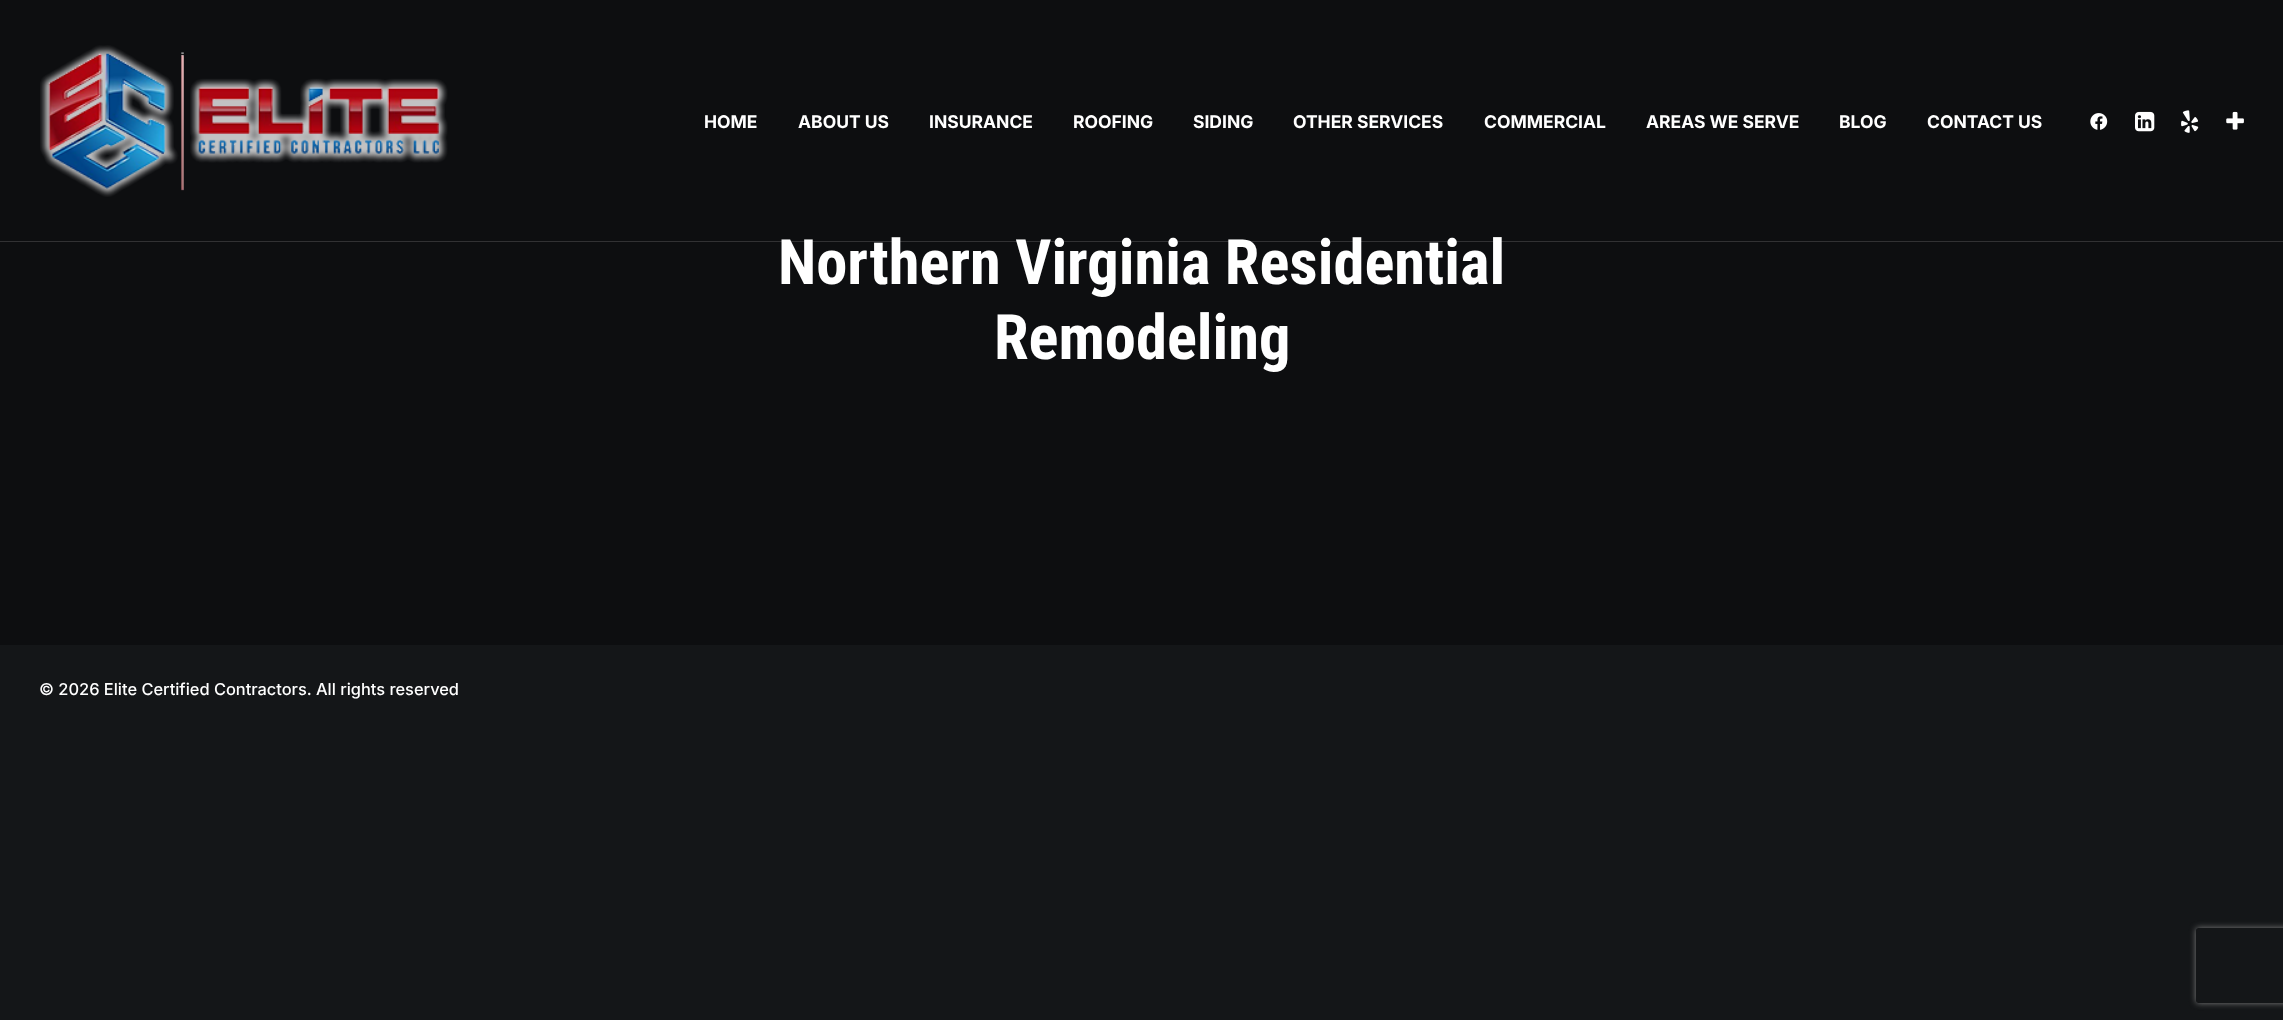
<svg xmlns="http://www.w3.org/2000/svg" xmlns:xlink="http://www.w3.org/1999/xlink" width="2283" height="1020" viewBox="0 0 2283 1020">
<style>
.cls-1{font:bold 17.5px Inter;fill:#ffffff}
.cls-2{font:bold 62.5px Roboto Condensed;fill:#ffffff}
.cls-3{font:500 16.4px Inter;fill:#ffffff}
</style>
<defs>
<clipPath id="clip1"><path d="M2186 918H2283V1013H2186ZM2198.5 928H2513.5C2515 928 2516 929 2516 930.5V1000.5C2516 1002 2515 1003 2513.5 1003H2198.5C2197 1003 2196 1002 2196 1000.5V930.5C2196 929 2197 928 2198.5 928Z" clip-rule="evenodd"/></clipPath>
</defs>
<rect width="100%" height="100%" fill="#141618"/>
<rect fill="#0d0e10" x="0" y="0" width="2283" height="645"/>
<image xlink:href="image0.png" x="40" y="45" width="408" height="152"/>
<image xlink:href="image1.png" x="2090" y="113" width="18" height="17"/>
<image xlink:href="image2.png" x="2135" y="111" width="20" height="21"/>
<image xlink:href="image3.png" x="2181" y="110" width="18" height="23"/>
<image xlink:href="image4.png" x="2226" y="111" width="18" height="19"/>
<g clip-path="url(#clip1)">
<rect fill="#808080" filter="blur(3px)" x="2196" y="928" width="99" height="75" rx="2.5"/>
</g>
<text class="cls-1" x="704" y="128">HOME</text>
<text class="cls-1" x="798" y="128">ABOUT US</text>
<text class="cls-1" x="929" y="128">INSURANCE</text>
<text class="cls-1" x="1073" y="128">ROOFING</text>
<text class="cls-1" x="1193" y="128">SIDING</text>
<text class="cls-1" x="1293" y="128">OTHER SERVICES</text>
<text class="cls-1" x="1484" y="128">COMMERCIAL</text>
<text class="cls-1" x="1646" y="128">AREAS WE SERVE</text>
<text class="cls-1" x="1839" y="128">BLOG</text>
<text class="cls-1" x="1927" y="128">CONTACT US</text>
<text class="cls-2" x="778" y="284">Northern Virginia Residential</text>
<rect fill="#ffffff" fill-opacity="0.15" x="0" y="241" width="2283" height="1"/>
<text class="cls-2" x="994" y="359">Remodeling</text>
<text class="cls-3" x="39" y="695">© 2026 Elite Certified Contractors. All rights reserved</text>
</svg>
